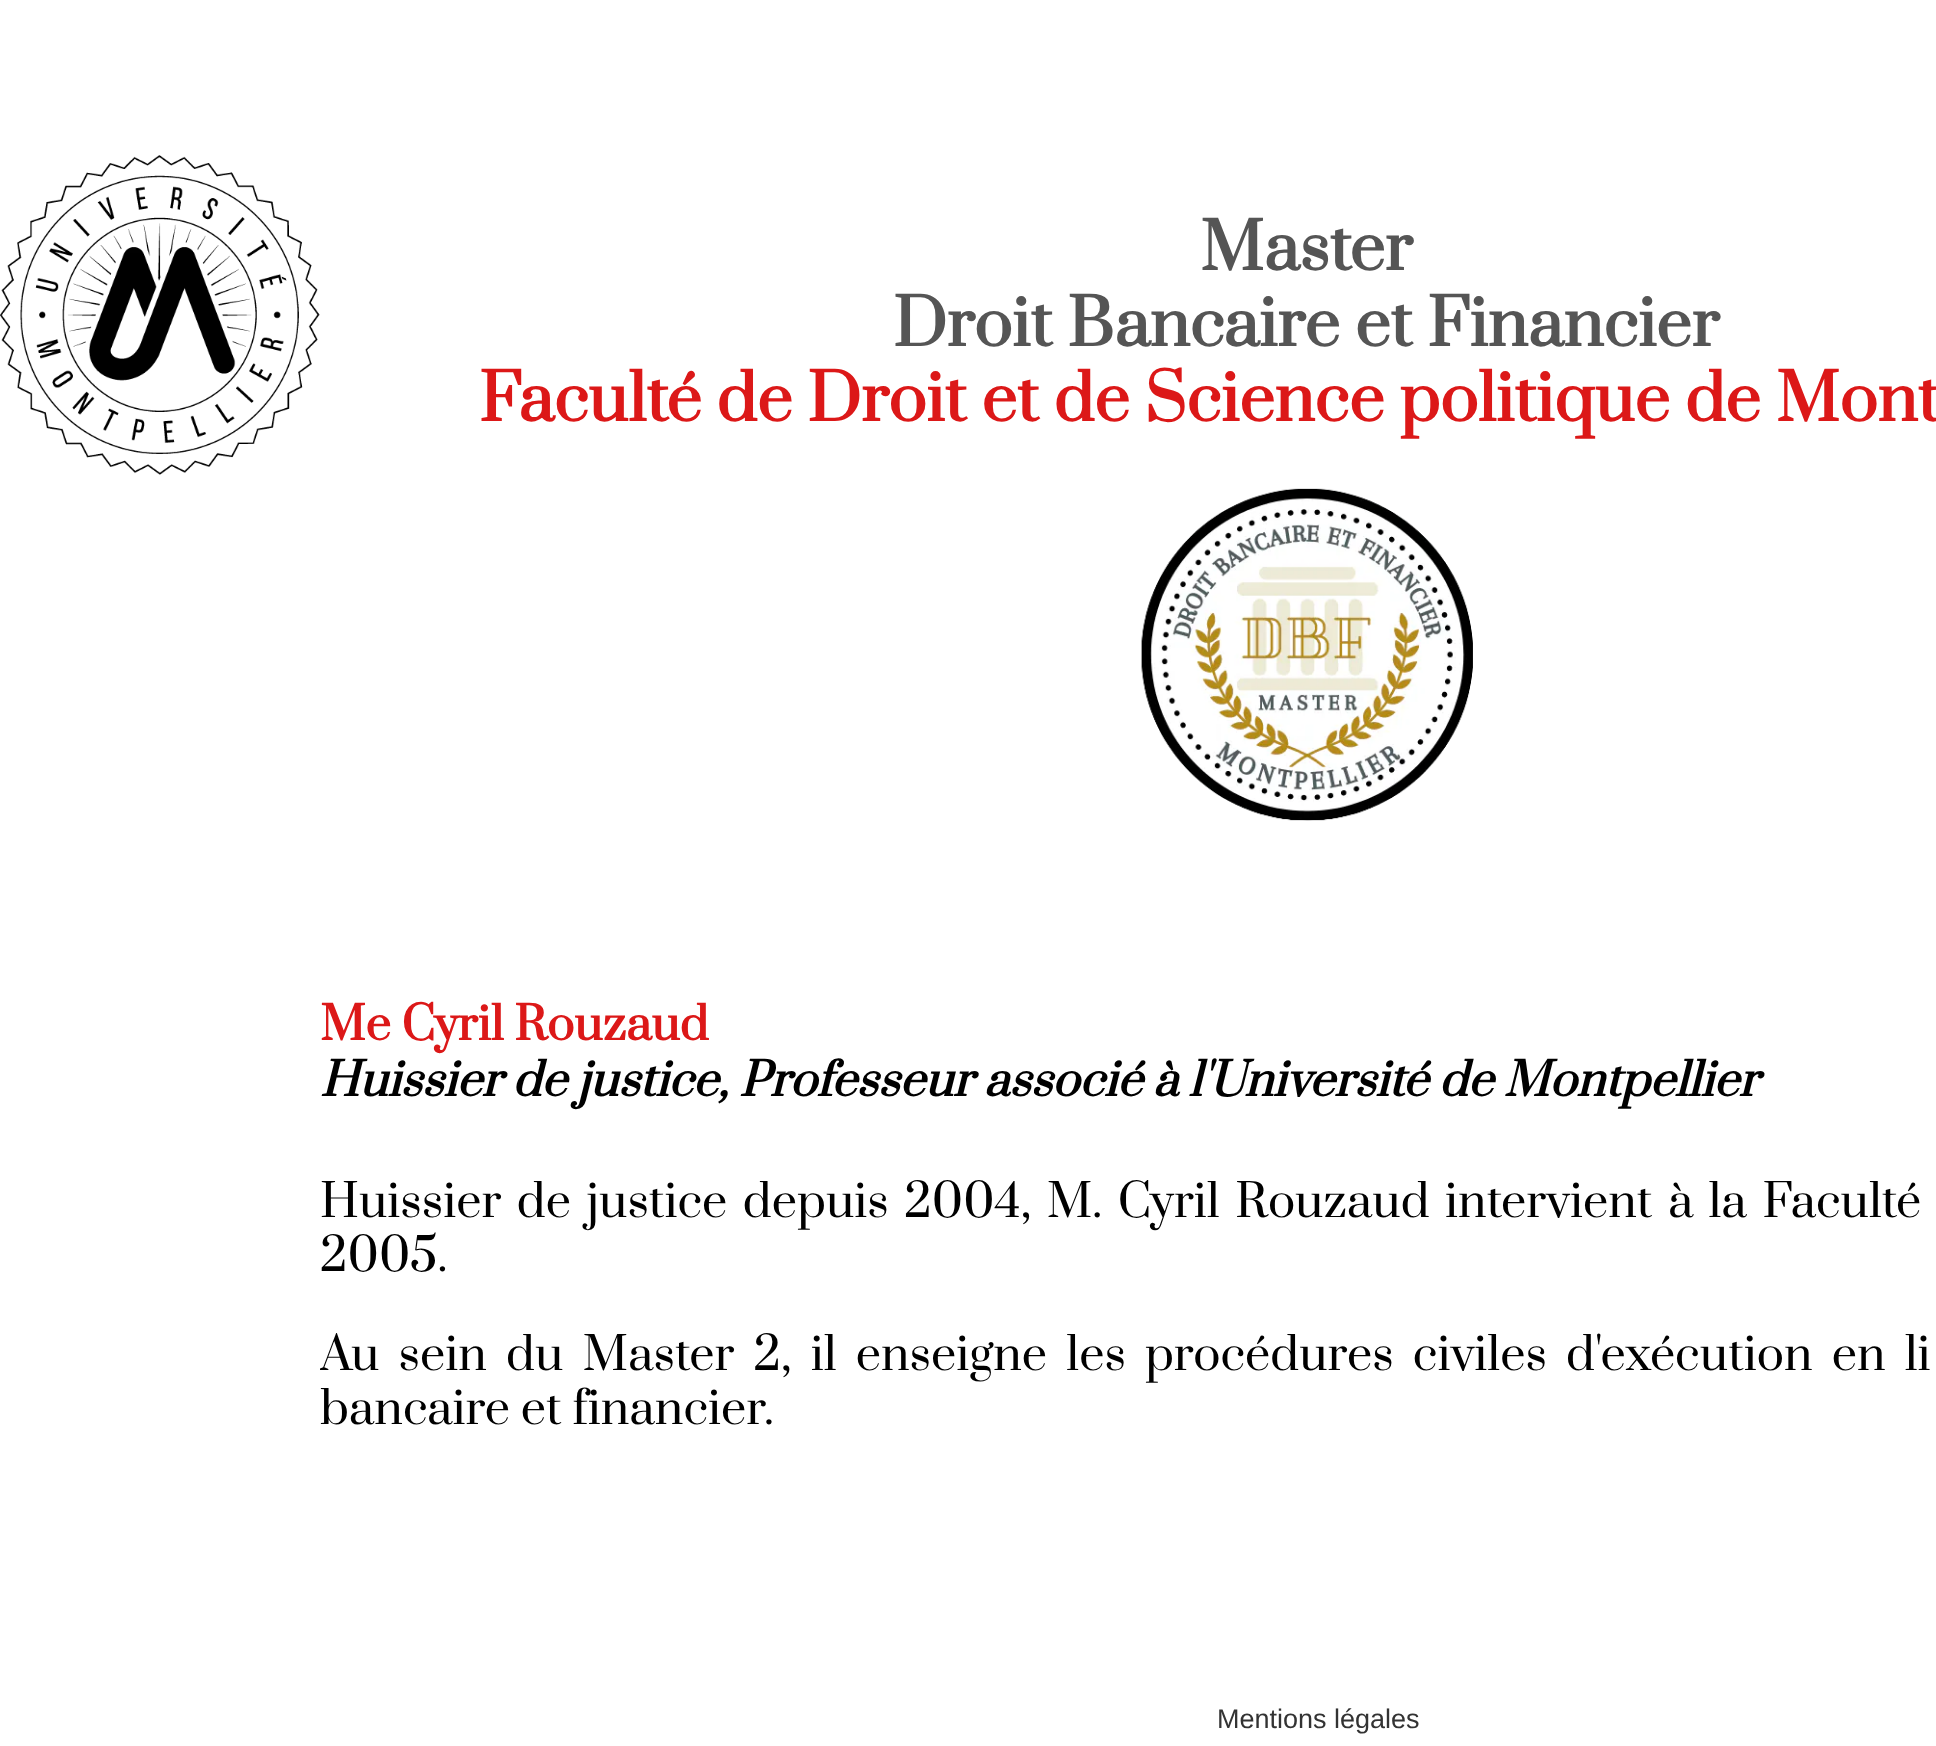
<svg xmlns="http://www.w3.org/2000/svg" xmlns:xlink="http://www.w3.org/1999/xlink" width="1936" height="1746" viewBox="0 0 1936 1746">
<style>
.cls-1{font:bold 63px Prata;fill:#555555}
.cls-2{font:bold 63px Prata;fill:#dc1818}
.cls-3{font:bold 45px Prata;fill:#dc1818}
.cls-4{font:italic bold 45px Prata;fill:#000000}
.cls-5{font:45px Prata;fill:#000000}
.cls-6{font:27px Liberation Sans;fill:#333333}
</style>
<defs>
<clipPath id="clip1"><rect x="320" y="1132" width="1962" height="306"/></clipPath>
</defs>
<rect width="100%" height="100%" fill="#ffffff"/>
<image xlink:href="image0.png" x="0" y="155" width="320" height="320"/>
<image xlink:href="image1.png" x="1141" y="488" width="332" height="333"/>
<text class="cls-1" x="1200" y="270">Master</text>
<text class="cls-1" x="893" y="346">Droit Bancaire et Financier</text>
<text class="cls-2" x="479" y="421">Faculté de Droit et de Science politique de Mont</text>
<text class="cls-3" x="320" y="1040">Me Cyril Rouzaud</text>
<text class="cls-4" x="320" y="1096">Huissier de justice, Professeur associé à l'Université de Montpellier</text>
<text class="cls-5"><tspan x="320" y="1217" word-spacing="4.75">Huissier de justice depuis 2004, M. Cyril Rouzaud intervient à la Faculté</tspan><tspan x="320" y="1271">2005.</tspan></text>
<g clip-path="url(#clip1)">
<text class="cls-5" x="320" y="1370" word-spacing="8.4">Au sein du Master 2, il enseigne les procédures civiles d'exécution en li</text>
</g>
<text class="cls-5" x="320" y="1424">bancaire et financier.</text>
<text class="cls-6" x="1217" y="1728">Mentions légales</text>
</svg>
